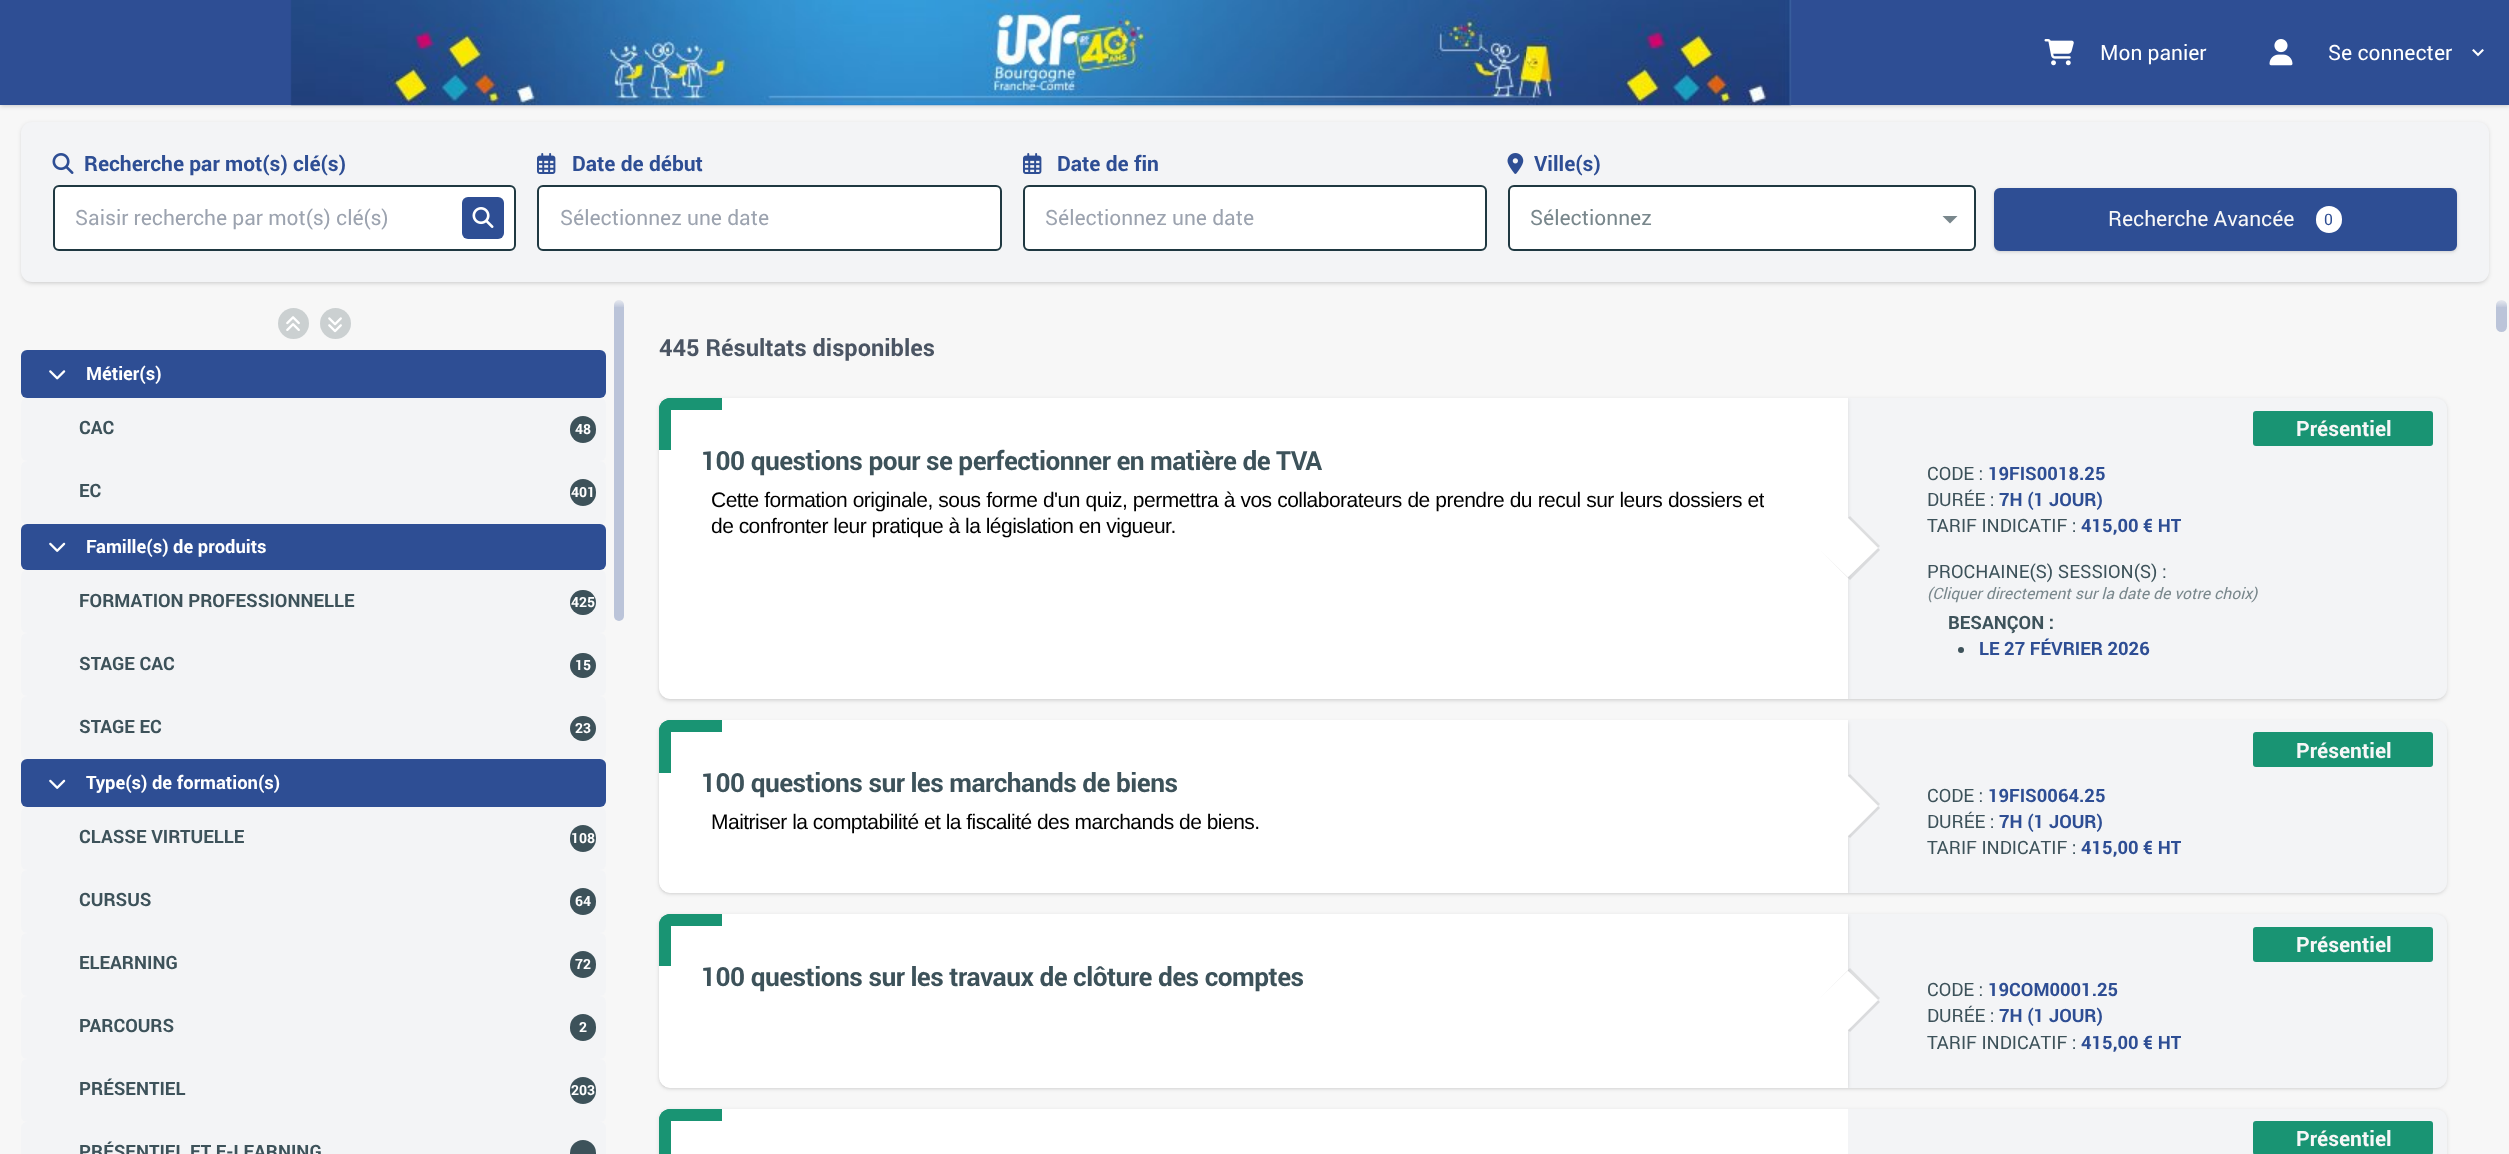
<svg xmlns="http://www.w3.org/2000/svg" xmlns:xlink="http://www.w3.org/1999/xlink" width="2509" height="1154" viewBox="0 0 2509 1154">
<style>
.cls-1{font:21px Roboto;fill:#ffffff}
.cls-2{font:bold 21px Roboto;fill:#2e4e94}
.cls-3{font:21px Roboto;fill:#9ca3af}
.cls-4{font:21px Roboto;fill:#79878c}
.cls-5{font:21px Roboto;fill:#f7f7f7}
.cls-6{font:15.75px Roboto;fill:#2e4e94}
.cls-7{font:bold 18.4px Roboto;fill:#ffffff}
.cls-8{font:bold 18.4px Roboto;fill:#3d525a}
.cls-9{font:bold 14px Roboto;fill:#ffffff}
.cls-10{font:bold 23.6px Roboto;fill:#4b5563}
.cls-11{font:bold 26.25px Roboto;letter-spacing:-0.52px;fill:#3d525a}
.cls-12{font:21px Liberation Sans;letter-spacing:-0.52px;fill:#000000}
.cls-13{font:bold 21px Roboto;fill:#f7f7f7}
.cls-14{font:18.4px Roboto;fill:#3d525a}
.cls-15{font:bold 18.4px Roboto;fill:#2e4e94}
.cls-16{font:italic 15.75px Roboto;fill:#79878c}
</style>
<defs>
<linearGradient id="g1" gradientUnits="userSpaceOnUse" x1="314" y1="297" x2="314" y2="308"><stop offset="0" stop-color="#f7f7f7"/><stop offset="1" stop-color="#f7f7f7" stop-opacity="0"/></linearGradient>
<linearGradient id="g2" gradientUnits="userSpaceOnUse" x1="1568" y1="297" x2="1568" y2="308"><stop offset="0" stop-color="#f7f7f7"/><stop offset="1" stop-color="#f7f7f7" stop-opacity="0"/></linearGradient>
<clipPath id="clip1"><rect x="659" y="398" width="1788" height="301" rx="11"/></clipPath>
<clipPath id="clip2"><rect x="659" y="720" width="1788" height="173" rx="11"/></clipPath>
<clipPath id="clip3"><rect x="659" y="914" width="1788" height="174" rx="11"/></clipPath>
<clipPath id="clip4"><rect x="701" y="488" width="1063" height="52"/></clipPath>
</defs>
<rect width="100%" height="100%" fill="#f7f7f7"/>
<rect fill="#000000" fill-opacity="0.1" filter="blur(1.5px)" x="2" y="3" width="2506" height="102"/>
<rect fill="#000000" fill-opacity="0.1" filter="blur(2px)" x="0" y="2" width="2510" height="105"/>
<rect fill="#2e4e94" x="0" y="0" width="2509" height="105"/>
<image xlink:href="image0.png" x="290" y="0" width="1502" height="106"/>
<image xlink:href="image1.png" x="2044" y="39" width="30" height="27"/>
<image xlink:href="image2.png" x="2269" y="39" width="24" height="27"/>
<image xlink:href="image3.png" x="2472" y="49" width="12" height="8"/>
<rect fill="#000000" fill-opacity="0.1" filter="blur(1.5px)" x="23" y="125" width="2464" height="157" rx="9"/>
<rect fill="#000000" fill-opacity="0.1" filter="blur(2px)" x="21" y="123" width="2468" height="161" rx="11"/>
<rect fill="#f3f4f6" x="21" y="122" width="2468" height="160" rx="11"/>
<image xlink:href="image4.png" x="52" y="153" width="22" height="21"/>
<rect fill="#ffffff" stroke="#1f3841" stroke-width="2" x="54" y="186" width="461" height="64" rx="5"/>
<rect fill="#2e4e94" x="462" y="197" width="42" height="42" rx="6"/>
<image xlink:href="image5.png" x="472" y="207" width="22" height="21"/>
<image xlink:href="image6.png" x="537" y="153" width="19" height="21"/>
<rect fill="#ffffff" stroke="#1f3841" stroke-width="2" x="538" y="186" width="463" height="64" rx="5"/>
<image xlink:href="image6.png" x="1023" y="153" width="19" height="21"/>
<rect fill="#ffffff" stroke="#1f3841" stroke-width="2" x="1024" y="186" width="462" height="64" rx="5"/>
<image xlink:href="image7.png" x="1507" y="153" width="17" height="21"/>
<rect fill="#ffffff" stroke="#1f3841" stroke-width="2" x="1509" y="186" width="466" height="64" rx="5"/>
<path fill="#79878c" d="M1942.5 216H1957.5L1950 223.5Z"/>
<rect fill="#000000" fill-opacity="0.1" filter="blur(1.5px)" x="1995" y="191" width="461" height="60" rx="4"/>
<rect fill="#000000" fill-opacity="0.1" filter="blur(2px)" x="1994" y="189" width="463" height="63" rx="6"/>
<rect fill="#2e4e94" stroke="#2e4e94" stroke-width="2" x="1995" y="189" width="461" height="61" rx="5"/>
<rect fill="#ffffff" x="2316" y="206" width="26" height="27" rx="13"/>
<rect fill="#bbc4d9" x="614" y="300" width="10" height="321" rx="5"/>
<rect fill="url(#g1)" x="614" y="300" width="10" height="7"/>
<circle fill="#cbd0d1" cx="293.5" cy="323.5" r="15.5"/>
<image xlink:href="image8.png" x="286" y="316" width="14" height="15"/>
<circle fill="#cbd0d1" cx="335.5" cy="323.5" r="15.5"/>
<image xlink:href="image9.png" x="328" y="317" width="14" height="16"/>
<rect fill="#2e4e94" x="21" y="350" width="585" height="48" rx="6"/>
<image xlink:href="image10.png" x="49" y="370" width="17" height="10"/>
<rect fill="#f3f4f6" x="21" y="398" width="585" height="63" rx="6"/>
<rect fill="#3d525a" x="570" y="416" width="26" height="27" rx="13"/>
<rect fill="#f3f4f6" x="21" y="461" width="585" height="63" rx="6"/>
<rect fill="#3d525a" x="570" y="479" width="26" height="27" rx="13"/>
<rect fill="#2e4e94" x="21" y="524" width="585" height="46" rx="6"/>
<image xlink:href="image11.png" x="49" y="542" width="17" height="10"/>
<rect fill="#f3f4f6" x="21" y="570" width="585" height="63" rx="6"/>
<rect fill="#3d525a" x="570" y="590" width="26" height="25" rx="12.5"/>
<rect fill="#f3f4f6" x="21" y="633" width="585" height="63" rx="6"/>
<rect fill="#3d525a" x="570" y="653" width="26" height="25" rx="12.5"/>
<rect fill="#f3f4f6" x="21" y="696" width="585" height="63" rx="6"/>
<rect fill="#3d525a" x="570" y="716" width="26" height="25" rx="12.5"/>
<rect fill="#2e4e94" x="21" y="759" width="585" height="48" rx="6"/>
<image xlink:href="image11.png" x="49" y="779" width="17" height="10"/>
<rect fill="#f3f4f6" x="21" y="807" width="585" height="63" rx="6"/>
<rect fill="#3d525a" x="570" y="825" width="26" height="27" rx="13"/>
<rect fill="#f3f4f6" x="21" y="870" width="585" height="63" rx="6"/>
<rect fill="#3d525a" x="570" y="888" width="26" height="27" rx="13"/>
<rect fill="#f3f4f6" x="21" y="933" width="585" height="63" rx="6"/>
<rect fill="#3d525a" x="570" y="951" width="26" height="27" rx="13"/>
<rect fill="#f3f4f6" x="21" y="996" width="585" height="63" rx="6"/>
<rect fill="#3d525a" x="570" y="1014" width="26" height="27" rx="13"/>
<rect fill="#f3f4f6" x="21" y="1059" width="585" height="63" rx="6"/>
<rect fill="#3d525a" x="570" y="1077" width="26" height="27" rx="13"/>
<path fill="#f3f4f6" d="M27 1122H600C603.5 1122 606 1124.5 606 1128V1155H21V1128C21 1124.5 23.5 1122 27 1122Z"/>
<rect fill="#3d525a" x="570" y="1140" width="26" height="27" rx="13"/>
<rect fill="#bbc4d9" x="2496" y="300" width="11" height="32" rx="5.5"/>
<rect fill="url(#g2)" x="2496" y="300" width="11" height="7"/>
<rect fill="#000000" fill-opacity="0.1" filter="blur(1.5px)" x="660" y="401" width="1785" height="298" rx="9"/>
<rect fill="#000000" fill-opacity="0.1" filter="blur(2px)" x="659" y="399" width="1788" height="302" rx="11"/>
<path fill="#f3f4f6" d="M1848 398H2436C2442 398 2447 403 2447 409V688C2447 694 2442 699 2436 699H1848Z"/>
<g clip-path="url(#clip1)">
<rect fill="#000000" fill-opacity="0.1" filter="blur(2px)" x="659" y="399" width="1189" height="302"/>
</g>
<path fill="#ffffff" d="M670 398H1848V699H670C664 699 659 694 659 688V409C659 403 664 398 670 398Z"/>
<path fill="#199473" d="M670 398H722V410H659V409C659 403 664 398 670 398Z"/>
<path fill="#199473" d="M670 398H671V450H659V409C659 403 664 398 670 398Z"/>
<path fill="#000000" fill-opacity="0.09" d="M1820 546L1850 516L1880 546L1864 561L1878 548L1848 518Z"/>
<path fill="#000000" fill-opacity="0.1" d="M1820 550L1850 580L1880 550L1878 548L1848 577Z"/>
<path fill="#ffffff" d="M1818 548L1848 518L1878 548L1848 577Z"/>
<rect fill="#199473" x="2253" y="411" width="180" height="35" rx="3"/>
<circle fill="#3d525a" cx="1961" cy="650" r="3"/>
<rect fill="#000000" fill-opacity="0.1" filter="blur(1.5px)" x="660" y="723" width="1785" height="170" rx="9"/>
<rect fill="#000000" fill-opacity="0.1" filter="blur(2px)" x="659" y="722" width="1788" height="172" rx="11"/>
<path fill="#f3f4f6" d="M1848 720H2436C2442 720 2447 725 2447 731V882C2447 888 2442 893 2436 893H1848Z"/>
<g clip-path="url(#clip2)">
<rect fill="#000000" fill-opacity="0.1" filter="blur(1.5px)" x="660" y="723" width="1187" height="170"/>
<rect fill="#000000" fill-opacity="0.1" filter="blur(2px)" x="659" y="722" width="1189" height="172"/>
</g>
<path fill="#ffffff" d="M670 720H1848V893H670C664 893 659 888 659 882V731C659 725 664 720 670 720Z"/>
<path fill="#199473" d="M670 720H722V732H659V731C659 725 664 720 670 720Z"/>
<path fill="#199473" d="M670 720H671V773H659V731C659 725 664 720 670 720Z"/>
<path fill="#000000" fill-opacity="0.09" d="M1820 804L1850 774L1880 804L1850 834L1878 806L1848 776Z"/>
<path fill="#000000" fill-opacity="0.1" d="M1820 808L1850 838L1880 808L1850 778L1878 806L1848 836Z"/>
<path fill="#ffffff" d="M1818 806L1848 776L1878 806L1848 836Z"/>
<rect fill="#199473" x="2253" y="732" width="180" height="35" rx="3"/>
<rect fill="#000000" fill-opacity="0.1" filter="blur(1.5px)" x="660" y="917" width="1785" height="171" rx="9"/>
<rect fill="#000000" fill-opacity="0.1" filter="blur(2px)" x="659" y="915" width="1788" height="174" rx="11"/>
<path fill="#f3f4f6" d="M1848 914H2436C2442 914 2447 919 2447 925V1077C2447 1083 2442 1088 2436 1088H1848Z"/>
<g clip-path="url(#clip3)">
<rect fill="#000000" fill-opacity="0.1" filter="blur(1.5px)" x="660" y="917" width="1187" height="171"/>
<rect fill="#000000" fill-opacity="0.1" filter="blur(2px)" x="659" y="915" width="1189" height="174"/>
</g>
<path fill="#ffffff" d="M670 914H1848V1088H670C664 1088 659 1083 659 1077V925C659 919 664 914 670 914Z"/>
<path fill="#199473" d="M670 914H722V926H659V925C659 919 664 914 670 914Z"/>
<path fill="#199473" d="M670 914H671V966H659V925C659 919 664 914 670 914Z"/>
<path fill="#000000" fill-opacity="0.09" d="M1820 998L1850 968L1880 998L1850 1028L1878 1000L1848 971Z"/>
<path fill="#000000" fill-opacity="0.1" d="M1820 1002L1850 1032L1880 1002L1866 988L1878 1000L1848 1030Z"/>
<path fill="#ffffff" d="M1818 1000L1848 971L1878 1000L1848 1030Z"/>
<rect fill="#199473" x="2253" y="927" width="180" height="35" rx="3"/>
<rect fill="#000000" fill-opacity="0.1" filter="blur(2px)" x="659" y="1110" width="1788" height="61" rx="11"/>
<path fill="#ffffff" d="M670 1109H1848V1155H659V1120C659 1114 664 1109 670 1109Z"/>
<path fill="#199473" d="M670 1109H722V1121H659V1120C659 1114 664 1109 670 1109Z"/>
<path fill="#199473" d="M670 1109H671V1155H659V1120C659 1114 664 1109 670 1109Z"/>
<path fill="#f3f4f6" d="M1848 1109H2436C2442 1109 2447 1114 2447 1120V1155H1848Z"/>
<rect fill="#199473" x="2253" y="1121" width="180" height="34" rx="3"/>
<text class="cls-1" x="2100" y="60">Mon panier</text>
<text class="cls-1" x="2328" y="60">Se connecter</text>
<text class="cls-2" x="84" y="171">Recherche par mot(s) clé(s)</text>
<text class="cls-3" x="75" y="225">Saisir recherche par mot(s) clé(s)</text>
<text class="cls-2" x="572" y="171">Date de début</text>
<text class="cls-3" x="560" y="225">Sélectionnez une date</text>
<text class="cls-2" x="1057" y="171">Date de fin</text>
<text class="cls-3" x="1045" y="225">Sélectionnez une date</text>
<text class="cls-2" x="1534" y="171">Ville(s)</text>
<text class="cls-4" x="1530" y="225">Sélectionnez</text>
<text class="cls-5" x="2108" y="226">Recherche Avancée</text>
<text class="cls-6" x="2324" y="225">0</text>
<text class="cls-7" x="86" y="380">Métier(s)</text>
<text class="cls-8" x="79" y="434">CAC</text>
<text class="cls-9" x="575" y="434">48</text>
<text class="cls-8" x="79" y="497">EC</text>
<text class="cls-9" x="571" y="497">401</text>
<text class="cls-7" x="86" y="553">Famille(s) de produits</text>
<text class="cls-8" x="79" y="607">FORMATION PROFESSIONNELLE</text>
<text class="cls-9" x="571" y="607">425</text>
<text class="cls-8" x="79" y="670">STAGE CAC</text>
<text class="cls-9" x="575" y="670">15</text>
<text class="cls-8" x="79" y="733">STAGE EC</text>
<text class="cls-9" x="575" y="733">23</text>
<text class="cls-7" x="86" y="789">Type(s) de formation(s)</text>
<text class="cls-8" x="79" y="843">CLASSE VIRTUELLE</text>
<text class="cls-9" x="571" y="843">108</text>
<text class="cls-8" x="79" y="906">CURSUS</text>
<text class="cls-9" x="575" y="906">64</text>
<text class="cls-8" x="79" y="969">ELEARNING</text>
<text class="cls-9" x="575" y="969">72</text>
<text class="cls-8" x="79" y="1032">PARCOURS</text>
<text class="cls-9" x="579" y="1032">2</text>
<text class="cls-8" x="79" y="1095">PRÉSENTIEL</text>
<text class="cls-9" x="571" y="1095">203</text>
<text class="cls-8" x="79" y="1158">PRÉSENTIEL ET E-LEARNING</text>
<text class="cls-10" x="659" y="356">445 Résultats disponibles</text>
<text class="cls-11" x="701" y="470">100 questions pour se perfectionner en matière de TVA</text>
<g clip-path="url(#clip4)">
<text class="cls-12" x="711" y="507" word-spacing="0.3">Cette formation originale, sous forme d'un quiz, permettra à vos collaborateurs de prendre du recul sur leurs dossiers et</text>
</g>
<text class="cls-12" x="711" y="533">de confronter leur pratique à la législation en vigueur.</text>
<text class="cls-13" x="2296" y="436">Présentiel</text>
<text class="cls-14" x="1927" y="480">CODE :</text>
<text class="cls-15" x="1988" y="480">19FIS0018.25</text>
<text class="cls-14" x="1927" y="506">DURÉE :</text>
<text class="cls-15" x="1999" y="506">7H (1 JOUR)</text>
<text class="cls-14" x="1927" y="532">TARIF INDICATIF :</text>
<text class="cls-15" x="2081" y="532">415,00 € HT</text>
<text class="cls-14" x="1927" y="578">PROCHAINE(S) SESSION(S) :</text>
<text class="cls-16" x="1927" y="599">(Cliquer directement sur la date de votre choix)</text>
<text class="cls-8" x="1948" y="629">BESANÇON :</text>
<text class="cls-15" x="1979" y="655">LE 27 FÉVRIER 2026</text>
<text class="cls-11" x="701" y="792">100 questions sur les marchands de biens</text>
<text class="cls-12" x="711" y="829">Maitriser la comptabilité et la fiscalité des marchands de biens.</text>
<text class="cls-13" x="2296" y="758">Présentiel</text>
<text class="cls-14" x="1927" y="802">CODE :</text>
<text class="cls-15" x="1988" y="802">19FIS0064.25</text>
<text class="cls-14" x="1927" y="828">DURÉE :</text>
<text class="cls-15" x="1999" y="828">7H (1 JOUR)</text>
<text class="cls-14" x="1927" y="854">TARIF INDICATIF :</text>
<text class="cls-15" x="2081" y="854">415,00 € HT</text>
<text class="cls-11" x="701" y="986">100 questions sur les travaux de clôture des comptes</text>
<text class="cls-13" x="2296" y="952">Présentiel</text>
<text class="cls-14" x="1927" y="996">CODE :</text>
<text class="cls-15" x="1988" y="996">19COM0001.25</text>
<text class="cls-14" x="1927" y="1022">DURÉE :</text>
<text class="cls-15" x="1999" y="1022">7H (1 JOUR)</text>
<text class="cls-14" x="1927" y="1049">TARIF INDICATIF :</text>
<text class="cls-15" x="2081" y="1049">415,00 € HT</text>
<text class="cls-13" x="2296" y="1146">Présentiel</text>
</svg>
